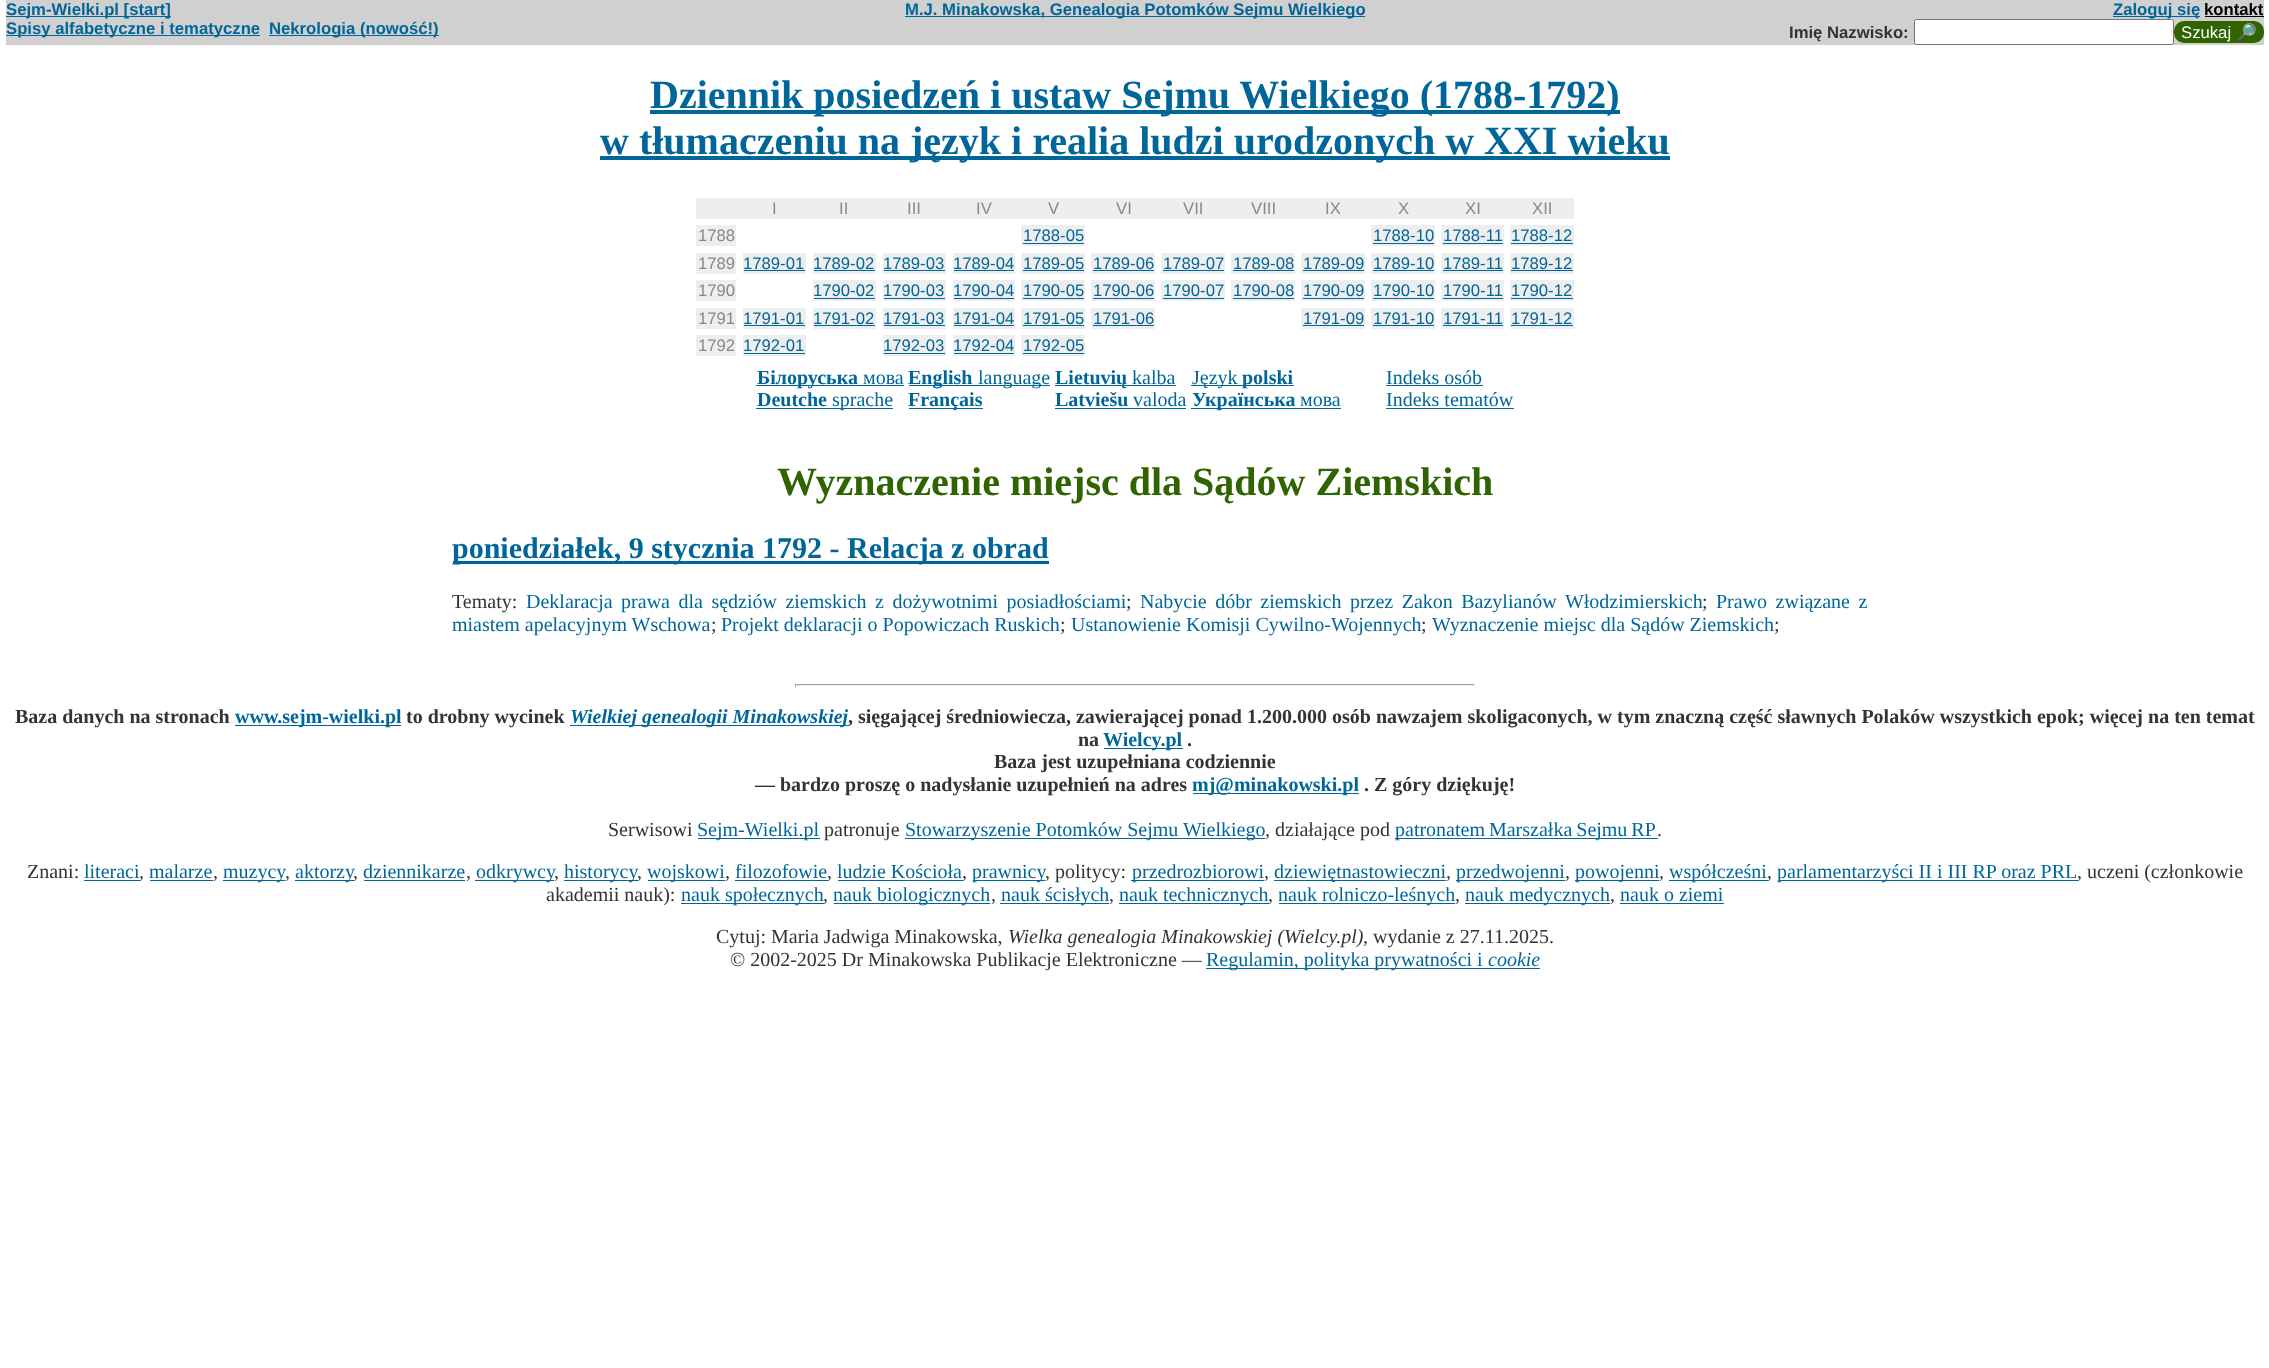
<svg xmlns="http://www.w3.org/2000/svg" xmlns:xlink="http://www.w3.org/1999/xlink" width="2269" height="1368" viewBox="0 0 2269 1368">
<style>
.cls-1{font:bold 16.7px Liberation Sans;fill:#006699}
.cls-2{font:bold 16.7px Liberation Sans;fill:#000000}
.cls-3{font:bold 16.7px Liberation Sans;fill:#333333}
.cls-4{font:16.7px Liberation Sans;fill:#ffffff}
.cls-5{font:16.7px Noto Color Emoji;fill:#ffffff}
.cls-6{font:bold 40px Liberation Serif;fill:#006699}
.cls-7{font:16.7px Liberation Sans;fill:#888888}
.cls-8{font:16.7px Liberation Sans;fill:#006699}
.cls-9{font:bold 20px Liberation Serif;fill:#006699}
.cls-10{font:20px Liberation Serif;fill:#006699}
.cls-11{font:bold 40px Liberation Serif;fill:#2f6400}
.cls-12{font:bold 30px Liberation Serif;fill:#006699}
.cls-13{font:20px Liberation Serif;fill:#333333}
.cls-14{font:bold 20px Liberation Serif;fill:#333333}
.cls-15{font:italic bold 20px Liberation Serif;fill:#006699}
.cls-16{font:italic 20px Liberation Serif;fill:#333333}
.cls-17{font:italic 20px Liberation Serif;fill:#006699}
</style>
<rect width="100%" height="100%" fill="#ffffff"/>
<rect fill="#d0d0d0" x="6" y="0" width="2258" height="45"/>
<rect fill="#006699" x="6" y="16" width="165" height="1"/>
<rect fill="#006699" x="905" y="16" width="460" height="1"/>
<rect fill="#006699" x="2113" y="16" width="87" height="1"/>
<rect fill="#000000" x="2205" y="16" width="59" height="1"/>
<rect fill="#006699" x="6" y="35" width="254" height="1"/>
<rect fill="#006699" x="269" y="35" width="170" height="1"/>
<rect fill="#ffffff" stroke="#767676" x="1914.5" y="19.5" width="259" height="25" rx="2"/>
<rect fill="#2f6400" x="2174" y="21" width="90" height="22" rx="10"/>
<rect fill="#006699" x="650" y="110" width="970" height="4"/>
<rect fill="#006699" x="600" y="156" width="1070" height="4"/>
<rect fill="#eeeeee" x="696" y="198" width="878" height="21"/>
<rect fill="#eeeeee" x="696" y="225" width="40" height="21"/>
<rect fill="#eeeeee" x="1021" y="225" width="64" height="21"/>
<rect fill="#006699" x="1023" y="243" width="61" height="1"/>
<rect fill="#eeeeee" x="1371" y="225" width="64" height="21"/>
<rect fill="#006699" x="1373" y="243" width="61" height="1"/>
<rect fill="#eeeeee" x="1441" y="225" width="63" height="21"/>
<rect fill="#006699" x="1443" y="243" width="60" height="1"/>
<rect fill="#eeeeee" x="1510" y="225" width="64" height="21"/>
<rect fill="#006699" x="1511" y="243" width="62" height="1"/>
<rect fill="#eeeeee" x="696" y="253" width="40" height="21"/>
<rect fill="#eeeeee" x="743" y="253" width="63" height="21"/>
<rect fill="#006699" x="744" y="270" width="61" height="1"/>
<rect fill="#eeeeee" x="813" y="253" width="63" height="21"/>
<rect fill="#006699" x="814" y="270" width="61" height="1"/>
<rect fill="#eeeeee" x="883" y="253" width="63" height="21"/>
<rect fill="#006699" x="884" y="270" width="61" height="1"/>
<rect fill="#eeeeee" x="953" y="253" width="62" height="21"/>
<rect fill="#006699" x="954" y="270" width="60" height="1"/>
<rect fill="#eeeeee" x="1021" y="253" width="64" height="21"/>
<rect fill="#006699" x="1023" y="270" width="61" height="1"/>
<rect fill="#eeeeee" x="1091" y="253" width="64" height="21"/>
<rect fill="#006699" x="1093" y="270" width="61" height="1"/>
<rect fill="#eeeeee" x="1161" y="253" width="64" height="21"/>
<rect fill="#006699" x="1163" y="270" width="61" height="1"/>
<rect fill="#eeeeee" x="1231" y="253" width="64" height="21"/>
<rect fill="#006699" x="1233" y="270" width="61" height="1"/>
<rect fill="#eeeeee" x="1301" y="253" width="64" height="21"/>
<rect fill="#006699" x="1303" y="270" width="61" height="1"/>
<rect fill="#eeeeee" x="1371" y="253" width="64" height="21"/>
<rect fill="#006699" x="1373" y="270" width="61" height="1"/>
<rect fill="#eeeeee" x="1441" y="253" width="63" height="21"/>
<rect fill="#006699" x="1443" y="270" width="60" height="1"/>
<rect fill="#eeeeee" x="1510" y="253" width="64" height="21"/>
<rect fill="#006699" x="1511" y="270" width="62" height="1"/>
<rect fill="#eeeeee" x="696" y="280" width="40" height="21"/>
<rect fill="#eeeeee" x="813" y="280" width="63" height="21"/>
<rect fill="#006699" x="814" y="298" width="61" height="1"/>
<rect fill="#eeeeee" x="883" y="280" width="63" height="21"/>
<rect fill="#006699" x="884" y="298" width="61" height="1"/>
<rect fill="#eeeeee" x="953" y="280" width="62" height="21"/>
<rect fill="#006699" x="954" y="298" width="60" height="1"/>
<rect fill="#eeeeee" x="1021" y="280" width="64" height="21"/>
<rect fill="#006699" x="1023" y="298" width="61" height="1"/>
<rect fill="#eeeeee" x="1091" y="280" width="64" height="21"/>
<rect fill="#006699" x="1093" y="298" width="61" height="1"/>
<rect fill="#eeeeee" x="1161" y="280" width="64" height="21"/>
<rect fill="#006699" x="1163" y="298" width="61" height="1"/>
<rect fill="#eeeeee" x="1231" y="280" width="64" height="21"/>
<rect fill="#006699" x="1233" y="298" width="61" height="1"/>
<rect fill="#eeeeee" x="1301" y="280" width="64" height="21"/>
<rect fill="#006699" x="1303" y="298" width="61" height="1"/>
<rect fill="#eeeeee" x="1371" y="280" width="64" height="21"/>
<rect fill="#006699" x="1373" y="298" width="61" height="1"/>
<rect fill="#eeeeee" x="1441" y="280" width="63" height="21"/>
<rect fill="#006699" x="1443" y="298" width="60" height="1"/>
<rect fill="#eeeeee" x="1510" y="280" width="64" height="21"/>
<rect fill="#006699" x="1511" y="298" width="62" height="1"/>
<rect fill="#eeeeee" x="696" y="308" width="40" height="21"/>
<rect fill="#eeeeee" x="743" y="308" width="63" height="21"/>
<rect fill="#006699" x="744" y="325" width="61" height="1"/>
<rect fill="#eeeeee" x="813" y="308" width="63" height="21"/>
<rect fill="#006699" x="814" y="325" width="61" height="1"/>
<rect fill="#eeeeee" x="883" y="308" width="63" height="21"/>
<rect fill="#006699" x="884" y="325" width="61" height="1"/>
<rect fill="#eeeeee" x="953" y="308" width="62" height="21"/>
<rect fill="#006699" x="954" y="325" width="60" height="1"/>
<rect fill="#eeeeee" x="1021" y="308" width="64" height="21"/>
<rect fill="#006699" x="1023" y="325" width="61" height="1"/>
<rect fill="#eeeeee" x="1091" y="308" width="64" height="21"/>
<rect fill="#006699" x="1093" y="325" width="61" height="1"/>
<rect fill="#eeeeee" x="1301" y="308" width="64" height="21"/>
<rect fill="#006699" x="1303" y="325" width="61" height="1"/>
<rect fill="#eeeeee" x="1371" y="308" width="64" height="21"/>
<rect fill="#006699" x="1373" y="325" width="61" height="1"/>
<rect fill="#eeeeee" x="1441" y="308" width="63" height="21"/>
<rect fill="#006699" x="1443" y="325" width="60" height="1"/>
<rect fill="#eeeeee" x="1510" y="308" width="64" height="21"/>
<rect fill="#006699" x="1511" y="325" width="62" height="1"/>
<rect fill="#eeeeee" x="696" y="335" width="40" height="21"/>
<rect fill="#eeeeee" x="743" y="335" width="63" height="21"/>
<rect fill="#006699" x="744" y="353" width="61" height="1"/>
<rect fill="#eeeeee" x="883" y="335" width="63" height="21"/>
<rect fill="#006699" x="884" y="353" width="61" height="1"/>
<rect fill="#eeeeee" x="953" y="335" width="62" height="21"/>
<rect fill="#006699" x="954" y="353" width="60" height="1"/>
<rect fill="#eeeeee" x="1021" y="335" width="64" height="21"/>
<rect fill="#006699" x="1023" y="353" width="61" height="1"/>
<rect fill="#006699" x="756" y="385" width="148" height="1"/>
<rect fill="#006699" x="756" y="408" width="137" height="1"/>
<rect fill="#006699" x="909" y="385" width="141" height="1"/>
<rect fill="#006699" x="909" y="408" width="74" height="1"/>
<rect fill="#006699" x="1055" y="385" width="121" height="1"/>
<rect fill="#006699" x="1055" y="408" width="131" height="1"/>
<rect fill="#006699" x="1191" y="385" width="103" height="1"/>
<rect fill="#006699" x="1191" y="408" width="150" height="1"/>
<rect fill="#006699" x="1386" y="385" width="97" height="1"/>
<rect fill="#006699" x="1386" y="408" width="128" height="1"/>
<rect fill="#006699" x="453" y="561" width="596" height="3"/>
<rect fill="#9f9f9f" x="795" y="684" width="680" height="1"/>
<rect fill="#eeeeee" x="1474" y="684" width="1" height="3"/>
<rect fill="#eeeeee" x="795" y="685" width="680" height="1"/>
<rect fill="#9f9f9f" x="795" y="684" width="1" height="3"/>
<rect fill="#006699" x="235" y="725" width="166" height="1"/>
<rect fill="#006699" x="570" y="725" width="279" height="1"/>
<rect fill="#006699" x="1104" y="748" width="79" height="1"/>
<rect fill="#006699" x="1193" y="793" width="166" height="1"/>
<rect fill="#006699" x="698" y="838" width="122" height="1"/>
<rect fill="#006699" x="905" y="838" width="360" height="1"/>
<rect fill="#006699" x="1395" y="838" width="263" height="1"/>
<rect fill="#006699" x="84" y="880" width="56" height="1"/>
<rect fill="#006699" x="150" y="880" width="63" height="1"/>
<rect fill="#006699" x="223" y="880" width="62" height="1"/>
<rect fill="#006699" x="295" y="880" width="59" height="1"/>
<rect fill="#006699" x="364" y="880" width="101" height="1"/>
<rect fill="#006699" x="475" y="880" width="79" height="1"/>
<rect fill="#006699" x="564" y="880" width="74" height="1"/>
<rect fill="#006699" x="648" y="880" width="77" height="1"/>
<rect fill="#006699" x="735" y="880" width="93" height="1"/>
<rect fill="#006699" x="838" y="880" width="125" height="1"/>
<rect fill="#006699" x="973" y="880" width="72" height="1"/>
<rect fill="#006699" x="1131" y="880" width="133" height="1"/>
<rect fill="#006699" x="1274" y="880" width="172" height="1"/>
<rect fill="#006699" x="1456" y="880" width="109" height="1"/>
<rect fill="#006699" x="1575" y="880" width="84" height="1"/>
<rect fill="#006699" x="1669" y="880" width="99" height="1"/>
<rect fill="#006699" x="1778" y="880" width="300" height="1"/>
<rect fill="#006699" x="681" y="903" width="143" height="1"/>
<rect fill="#006699" x="834" y="903" width="156" height="1"/>
<rect fill="#006699" x="1000" y="903" width="109" height="1"/>
<rect fill="#006699" x="1119" y="903" width="150" height="1"/>
<rect fill="#006699" x="1279" y="903" width="176" height="1"/>
<rect fill="#006699" x="1465" y="903" width="145" height="1"/>
<rect fill="#006699" x="1620" y="903" width="104" height="1"/>
<rect fill="#006699" x="1206" y="968" width="334" height="1"/>
<text class="cls-1" x="6" y="15">Sejm-Wielki.pl [start]</text>
<text class="cls-1" x="905" y="15">M.J. Minakowska, Genealogia Potomków Sejmu Wielkiego</text>
<text class="cls-1" x="2113" y="15">Zaloguj się</text>
<text class="cls-2" x="2204" y="15">kontakt</text>
<text class="cls-1" x="6" y="34">Spisy alfabetyczne i tematyczne</text>
<text class="cls-1" x="269" y="34">Nekrologia (nowość!)</text>
<text class="cls-3" x="1789" y="38">Imię Nazwisko:</text>
<text class="cls-4" x="2181" y="38">Szukaj</text>
<text class="cls-5" x="2236" y="38">🔎</text>
<text class="cls-6" x="650" y="108">Dziennik posiedzeń i ustaw Sejmu Wielkiego (1788-1792)</text>
<text class="cls-6" x="600" y="154">w tłumaczeniu na język i realia ludzi urodzonych w XXI wieku</text>
<text class="cls-7" x="772" y="214">I</text>
<text class="cls-7" x="839" y="214">II</text>
<text class="cls-7" x="907" y="214">III</text>
<text class="cls-7" x="976" y="214">IV</text>
<text class="cls-7" x="1048" y="214">V</text>
<text class="cls-7" x="1116" y="214">VI</text>
<text class="cls-7" x="1183" y="214">VII</text>
<text class="cls-7" x="1251" y="214">VIII</text>
<text class="cls-7" x="1325" y="214">IX</text>
<text class="cls-7" x="1398" y="214">X</text>
<text class="cls-7" x="1465" y="214">XI</text>
<text class="cls-7" x="1532" y="214">XII</text>
<text class="cls-7" x="698" y="241">1788</text>
<text class="cls-8" x="1023" y="241">1788-05</text>
<text class="cls-8" x="1373" y="241">1788-10</text>
<text class="cls-8" x="1443" y="241">1788-11</text>
<text class="cls-8" x="1511" y="241">1788-12</text>
<text class="cls-7" x="698" y="269">1789</text>
<text class="cls-8" x="743" y="269">1789-01</text>
<text class="cls-8" x="813" y="269">1789-02</text>
<text class="cls-8" x="883" y="269">1789-03</text>
<text class="cls-8" x="953" y="269">1789-04</text>
<text class="cls-8" x="1023" y="269">1789-05</text>
<text class="cls-8" x="1093" y="269">1789-06</text>
<text class="cls-8" x="1163" y="269">1789-07</text>
<text class="cls-8" x="1233" y="269">1789-08</text>
<text class="cls-8" x="1303" y="269">1789-09</text>
<text class="cls-8" x="1373" y="269">1789-10</text>
<text class="cls-8" x="1443" y="269">1789-11</text>
<text class="cls-8" x="1511" y="269">1789-12</text>
<text class="cls-7" x="698" y="296">1790</text>
<text class="cls-8" x="813" y="296">1790-02</text>
<text class="cls-8" x="883" y="296">1790-03</text>
<text class="cls-8" x="953" y="296">1790-04</text>
<text class="cls-8" x="1023" y="296">1790-05</text>
<text class="cls-8" x="1093" y="296">1790-06</text>
<text class="cls-8" x="1163" y="296">1790-07</text>
<text class="cls-8" x="1233" y="296">1790-08</text>
<text class="cls-8" x="1303" y="296">1790-09</text>
<text class="cls-8" x="1373" y="296">1790-10</text>
<text class="cls-8" x="1443" y="296">1790-11</text>
<text class="cls-8" x="1511" y="296">1790-12</text>
<text class="cls-7" x="698" y="324">1791</text>
<text class="cls-8" x="743" y="324">1791-01</text>
<text class="cls-8" x="813" y="324">1791-02</text>
<text class="cls-8" x="883" y="324">1791-03</text>
<text class="cls-8" x="953" y="324">1791-04</text>
<text class="cls-8" x="1023" y="324">1791-05</text>
<text class="cls-8" x="1093" y="324">1791-06</text>
<text class="cls-8" x="1303" y="324">1791-09</text>
<text class="cls-8" x="1373" y="324">1791-10</text>
<text class="cls-8" x="1443" y="324">1791-11</text>
<text class="cls-8" x="1511" y="324">1791-12</text>
<text class="cls-7" x="698" y="351">1792</text>
<text class="cls-8" x="743" y="351">1792-01</text>
<text class="cls-8" x="883" y="351">1792-03</text>
<text class="cls-8" x="953" y="351">1792-04</text>
<text class="cls-8" x="1023" y="351">1792-05</text>
<text class="cls-9" x="757" y="384">Білоруська</text>
<text class="cls-10" x="863" y="384">мова</text>
<text class="cls-9" x="757" y="406">Deutche</text>
<text class="cls-10" x="832" y="406">sprache</text>
<text class="cls-9" x="908" y="384">English</text>
<text class="cls-10" x="978" y="384">language</text>
<text class="cls-9" x="908" y="406">Français</text>
<text class="cls-9" x="1055" y="384">Lietuvių</text>
<text class="cls-10" x="1132" y="384">kalba</text>
<text class="cls-9" x="1055" y="406">Latviešu</text>
<text class="cls-10" x="1133" y="406">valoda</text>
<text class="cls-10" x="1192" y="384">Język</text>
<text class="cls-9" x="1242" y="384">polski</text>
<text class="cls-9" x="1192" y="406">Українська</text>
<text class="cls-10" x="1300" y="406">мова</text>
<text class="cls-10"><tspan x="1386" y="384">Indeks osób</tspan><tspan x="1386" y="406">Indeks tematów</tspan></text>
<text class="cls-11" x="777" y="495">Wyznaczenie miejsc dla Sądów Ziemskich</text>
<text class="cls-12" x="452" y="558">poniedziałek, 9 stycznia 1792 - Relacja z obrad</text>
<text class="cls-13" x="452" y="608">Tematy:</text>
<text class="cls-10" x="526" y="608" word-spacing="3.5">Deklaracja prawa dla sędziów ziemskich z dożywotnimi posiadłościami</text>
<text class="cls-13" x="1126" y="608">;</text>
<text class="cls-10" x="1140" y="608" word-spacing="3.5">Nabycie dóbr ziemskich przez Zakon Bazylianów Włodzimierskich</text>
<text class="cls-13" x="1702" y="608">;</text>
<text class="cls-10" x="1716" y="608" word-spacing="3.5">Prawo związane z</text>
<text class="cls-10" x="452" y="631">miastem apelacyjnym Wschowa</text>
<text class="cls-13" x="711" y="631">;</text>
<text class="cls-10" x="721" y="631">Projekt deklaracji o Popowiczach Ruskich</text>
<text class="cls-13" x="1060" y="631">;</text>
<text class="cls-10" x="1071" y="631">Ustanowienie Komisji Cywilno-Wojennych</text>
<text class="cls-13" x="1421" y="631">;</text>
<text class="cls-10" x="1432" y="631">Wyznaczenie miejsc dla Sądów Ziemskich</text>
<text class="cls-13" x="1774" y="631">;</text>
<text class="cls-14" x="15" y="723">Baza danych na stronach</text>
<text class="cls-9" x="235" y="723">www.sejm-wielki.pl</text>
<text class="cls-14" x="406" y="723">to drobny wycinek</text>
<text class="cls-15" x="570" y="723">Wielkiej genealogii Minakowskiej</text>
<text class="cls-14" x="848" y="723">, sięgającej średniowiecza, zawierającej ponad 1.200.000 osób nawzajem skoligaconych, w tym znaczną część sławnych Polaków wszystkich epok; więcej na ten temat</text>
<text class="cls-14" x="1078" y="746">na</text>
<text class="cls-9" x="1103" y="746">Wielcy.pl</text>
<text class="cls-14" x="1187" y="746">.</text>
<text class="cls-14" x="994" y="768">Baza jest uzupełniana codziennie</text>
<text class="cls-14" x="755" y="791">— bardzo proszę o nadysłanie uzupełnień na adres</text>
<text class="cls-9" x="1192" y="791">mj@minakowski.pl</text>
<text class="cls-14" x="1364" y="791">. Z góry dziękuję!</text>
<text class="cls-13" x="608" y="836">Serwisowi</text>
<text class="cls-10" x="697" y="836">Sejm-Wielki.pl</text>
<text class="cls-13" x="824" y="836">patronuje</text>
<text class="cls-10" x="905" y="836">Stowarzyszenie Potomków Sejmu Wielkiego</text>
<text class="cls-13" x="1265" y="836">, działające pod</text>
<text class="cls-10" x="1395" y="836" word-spacing="-1">patronatem Marszałka Sejmu RP</text>
<text class="cls-13" x="1657" y="836">.</text>
<text class="cls-13" x="27" y="878">Znani:</text>
<text class="cls-10" x="84" y="878">literaci</text>
<text class="cls-13" x="139" y="878">,</text>
<text class="cls-10" x="149" y="878">malarze</text>
<text class="cls-13" x="213" y="878">,</text>
<text class="cls-10" x="223" y="878">muzycy</text>
<text class="cls-13" x="285" y="878">,</text>
<text class="cls-10" x="295" y="878">aktorzy</text>
<text class="cls-13" x="353" y="878">,</text>
<text class="cls-10" x="363" y="878">dziennikarze</text>
<text class="cls-13" x="466" y="878">,</text>
<text class="cls-10" x="476" y="878">odkrywcy</text>
<text class="cls-13" x="554" y="878">,</text>
<text class="cls-10" x="564" y="878">historycy</text>
<text class="cls-13" x="637" y="878">,</text>
<text class="cls-10" x="647" y="878">wojskowi</text>
<text class="cls-13" x="725" y="878">,</text>
<text class="cls-10" x="735" y="878">filozofowie</text>
<text class="cls-13" x="827" y="878">,</text>
<text class="cls-10" x="837" y="878">ludzie Kościoła</text>
<text class="cls-13" x="962" y="878">,</text>
<text class="cls-10" x="972" y="878">prawnicy</text>
<text class="cls-13" x="1045" y="878">, politycy:</text>
<text class="cls-10" x="1132" y="878">przedrozbiorowi</text>
<text class="cls-13" x="1264" y="878">,</text>
<text class="cls-10" x="1274" y="878">dziewiętnastowieczni</text>
<text class="cls-13" x="1446" y="878">,</text>
<text class="cls-10" x="1456" y="878">przedwojenni</text>
<text class="cls-13" x="1565" y="878">,</text>
<text class="cls-10" x="1575" y="878">powojenni</text>
<text class="cls-13" x="1659" y="878">,</text>
<text class="cls-10" x="1669" y="878">współcześni</text>
<text class="cls-13" x="1767" y="878">,</text>
<text class="cls-10" x="1777" y="878">parlamentarzyści II i III RP oraz PRL</text>
<text class="cls-13" x="2077" y="878">, uczeni (członkowie</text>
<text class="cls-13" x="546" y="901">akademii nauk):</text>
<text class="cls-10" x="681" y="901">nauk społecznych</text>
<text class="cls-13" x="823" y="901">,</text>
<text class="cls-10" x="833" y="901">nauk biologicznych</text>
<text class="cls-13" x="991" y="901">,</text>
<text class="cls-10" x="1001" y="901">nauk ścisłych</text>
<text class="cls-13" x="1109" y="901">,</text>
<text class="cls-10" x="1119" y="901">nauk technicznych</text>
<text class="cls-13" x="1268" y="901">,</text>
<text class="cls-10" x="1278" y="901">nauk rolniczo-leśnych</text>
<text class="cls-13" x="1455" y="901">,</text>
<text class="cls-10" x="1465" y="901">nauk medycznych</text>
<text class="cls-13" x="1610" y="901">,</text>
<text class="cls-10" x="1620" y="901">nauk o ziemi</text>
<text class="cls-13" x="716" y="943">Cytuj: Maria Jadwiga Minakowska,</text>
<text class="cls-16" x="1008" y="943">Wielka genealogia Minakowskiej (Wielcy.pl)</text>
<text class="cls-13" x="1363" y="943">, wydanie z 27.11.2025.</text>
<text class="cls-13" x="730" y="966">© 2002-2025 Dr Minakowska Publikacje Elektroniczne —</text>
<text class="cls-10" x="1206" y="966">Regulamin, polityka prywatności i</text>
<text class="cls-17" x="1488" y="966">cookie</text>
</svg>
